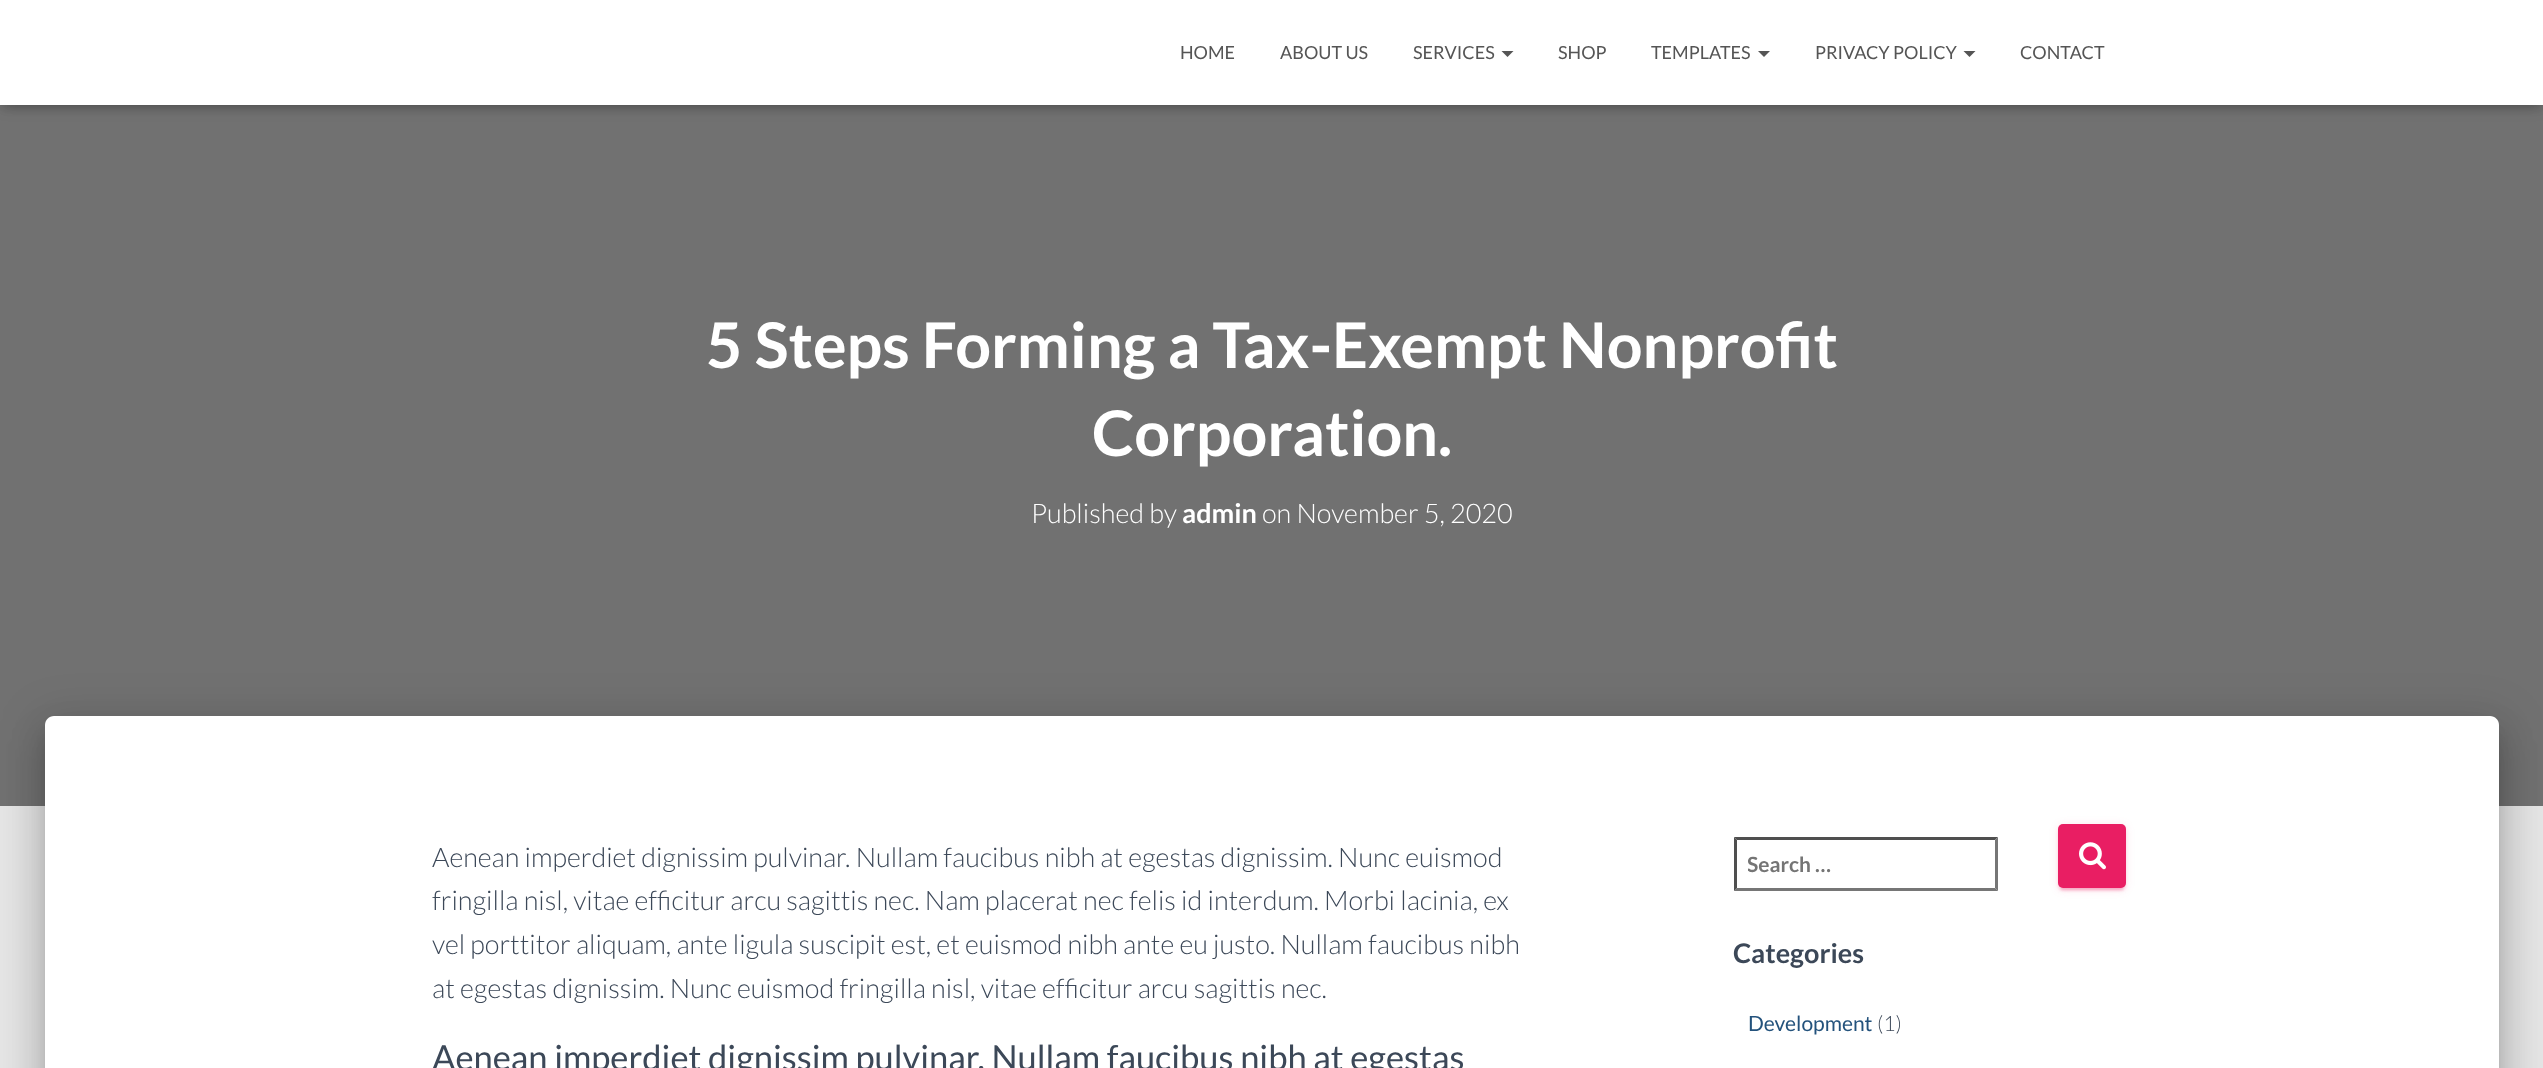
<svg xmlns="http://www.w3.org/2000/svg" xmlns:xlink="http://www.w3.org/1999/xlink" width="2543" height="1068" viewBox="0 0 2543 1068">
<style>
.cls-1{font:18px Lato;fill:#555555}
.cls-2{font:bold 63px Lato;fill:#ffffff}
.cls-3{font:300 27px Lato;fill:#ffffff}
.cls-4{font:bold 27px Lato;fill:#ffffff}
.cls-5{font:300 27px Lato;fill:#3c4858}
.cls-6{font:34.5px Lato;fill:#3c4858}
.cls-7{font:bold 21px Lato;fill:#757575}
.cls-8{font:bold 27px Lato;fill:#3c4858}
.cls-9{font:21px Lato;fill:#23527c}
.cls-10{font:300 21px Lato;fill:#3c4858}
</style>
<defs>
<clipPath id="clip1"><rect x="1748" y="851" width="231" height="25"/></clipPath>
</defs>
<rect width="100%" height="100%" fill="#e5e5e5"/>
<rect fill="#717171" x="0" y="105" width="2543" height="701"/>
<rect fill="#000000" fill-opacity="0.1" filter="blur(4px)" x="3" y="9" width="2538" height="99"/>
<rect fill="#000000" fill-opacity="0.12" filter="blur(7.5px)" x="0" y="2" width="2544" height="105"/>
<rect fill="#000000" fill-opacity="0.42" filter="blur(7.5px)" x="9" y="11" width="2526" height="87"/>
<rect fill="#ffffff" x="0" y="0" width="2543" height="105"/>
<path fill="#555555" d="M1501.5 51H1513.5L1507.5 57Z"/>
<path fill="#555555" d="M1758 51H1770L1764 57Z"/>
<path fill="#555555" d="M1963.5 51H1975.5L1969.5 57Z"/>
<rect fill="#000000" fill-opacity="0.2" filter="blur(7.5px)" x="53" y="735" width="2439" height="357" rx="1.5"/>
<rect fill="#000000" fill-opacity="0.12" filter="blur(22.5px)" x="38" y="717" width="2469" height="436" rx="17"/>
<rect fill="#000000" fill-opacity="0.14" filter="blur(18px)" x="42" y="737" width="2460" height="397" rx="12"/>
<path fill="#ffffff" d="M54 716H2490C2495 716 2499 720 2499 725V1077H45V725C45 720 49 716 54 716Z"/>
<path fill="#4f4f4f" d="M1734 837H1998L1995 840H1737Z"/>
<path fill="#767676" d="M1998 837V891L1995 888V840Z"/>
<path fill="#767676" d="M1998 891H1734L1737 888H1995Z"/>
<path fill="#4f4f4f" d="M1734 891V837L1737 840V888Z"/>
<rect fill="#e91e63" fill-opacity="0.12" filter="blur(4px)" x="2058" y="825" width="68" height="65" rx="5"/>
<rect fill="#e91e63" fill-opacity="0.2" filter="blur(1px)" x="2061" y="831" width="62" height="59" rx="1.5"/>
<rect fill="#e91e63" fill-opacity="0.14" filter="blur(1.5px)" x="2058" y="827" width="68" height="64" rx="5"/>
<rect fill="#e91e63" x="2058" y="824" width="68" height="64" rx="5"/>
<image xlink:href="image0.png" x="2079" y="842" width="27" height="28"/>
<text class="cls-1" x="1180" y="59">HOME</text>
<text class="cls-1" x="1280" y="59">ABOUT US</text>
<text class="cls-1" x="1413" y="59">SERVICES</text>
<text class="cls-1" x="1558" y="59">SHOP</text>
<text class="cls-1" x="1651" y="59">TEMPLATES</text>
<text class="cls-1" x="1815" y="59">PRIVACY POLICY</text>
<text class="cls-1" x="2020" y="59">CONTACT</text>
<text class="cls-2" x="706" y="368">5 Steps Forming a Tax-Exempt Nonprofit</text>
<text class="cls-2" x="1092" y="456">Corporation.</text>
<text class="cls-3" x="1031" y="523">Published by</text>
<text class="cls-4" x="1182" y="523">admin</text>
<text class="cls-3" x="1262" y="523">on November 5, 2020</text>
<text class="cls-5"><tspan x="432" y="867">Aenean imperdiet dignissim pulvinar. Nullam faucibus nibh at egestas dignissim. Nunc euismod</tspan><tspan x="432" y="910">fringilla nisl, vitae efficitur arcu sagittis nec. Nam placerat nec felis id interdum. Morbi lacinia, ex</tspan><tspan x="432" y="954">vel porttitor aliquam, ante ligula suscipit est, et euismod nibh ante eu justo. Nullam faucibus nibh</tspan><tspan x="432" y="998">at egestas dignissim. Nunc euismod fringilla nisl, vitae efficitur arcu sagittis nec.</tspan></text>
<text class="cls-6" x="432" y="1070">Aenean imperdiet dignissim pulvinar. Nullam faucibus nibh at egestas</text>
<g clip-path="url(#clip1)">
<text class="cls-7" x="1747" y="872">Search …</text>
</g>
<text class="cls-8" x="1733" y="963">Categories</text>
<text class="cls-9" x="1748" y="1031">Development</text>
<text class="cls-10" x="1877" y="1031">(1)</text>
</svg>
